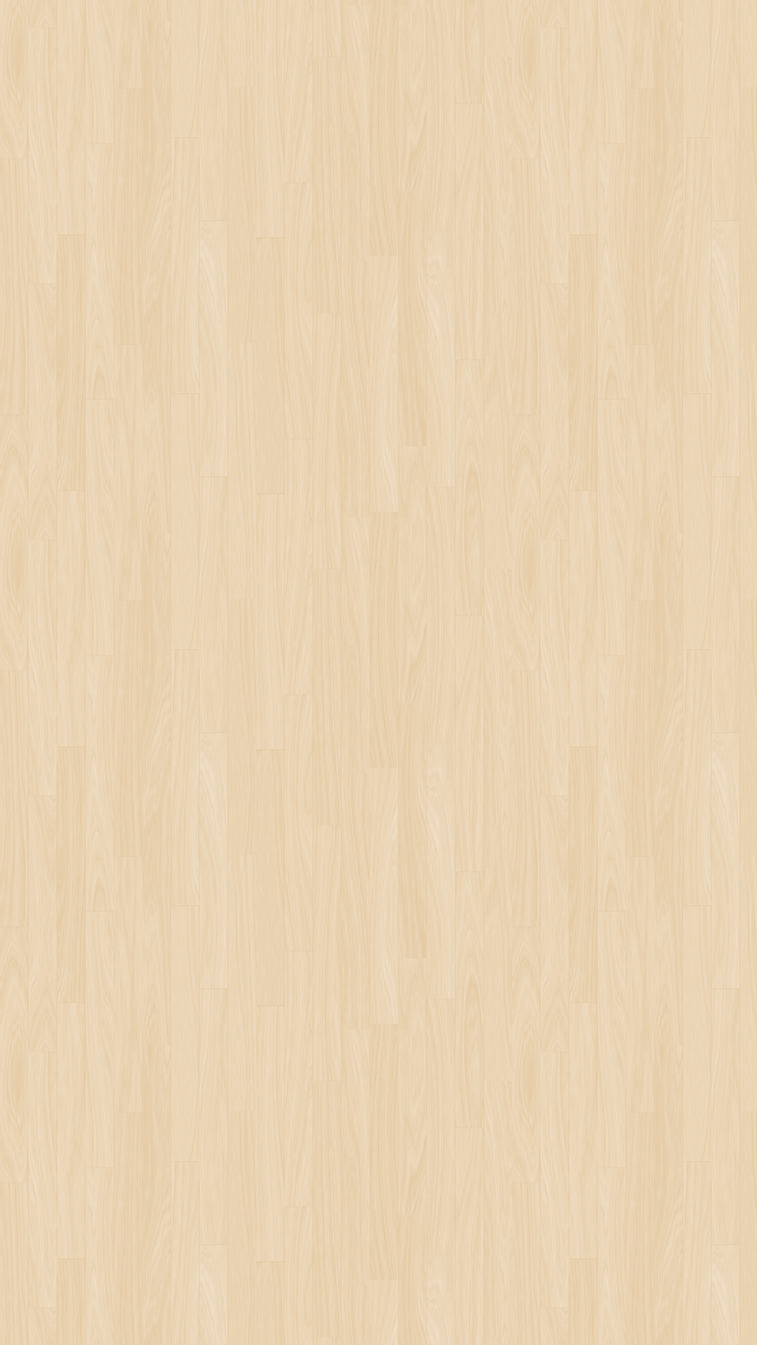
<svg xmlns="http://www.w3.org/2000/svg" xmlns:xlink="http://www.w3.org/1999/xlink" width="757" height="1345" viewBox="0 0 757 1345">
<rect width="100%" height="100%" fill="#ffffff"/>
<image xlink:href="image0.png" x="0" y="0" width="757" height="1345"/>
</svg>
